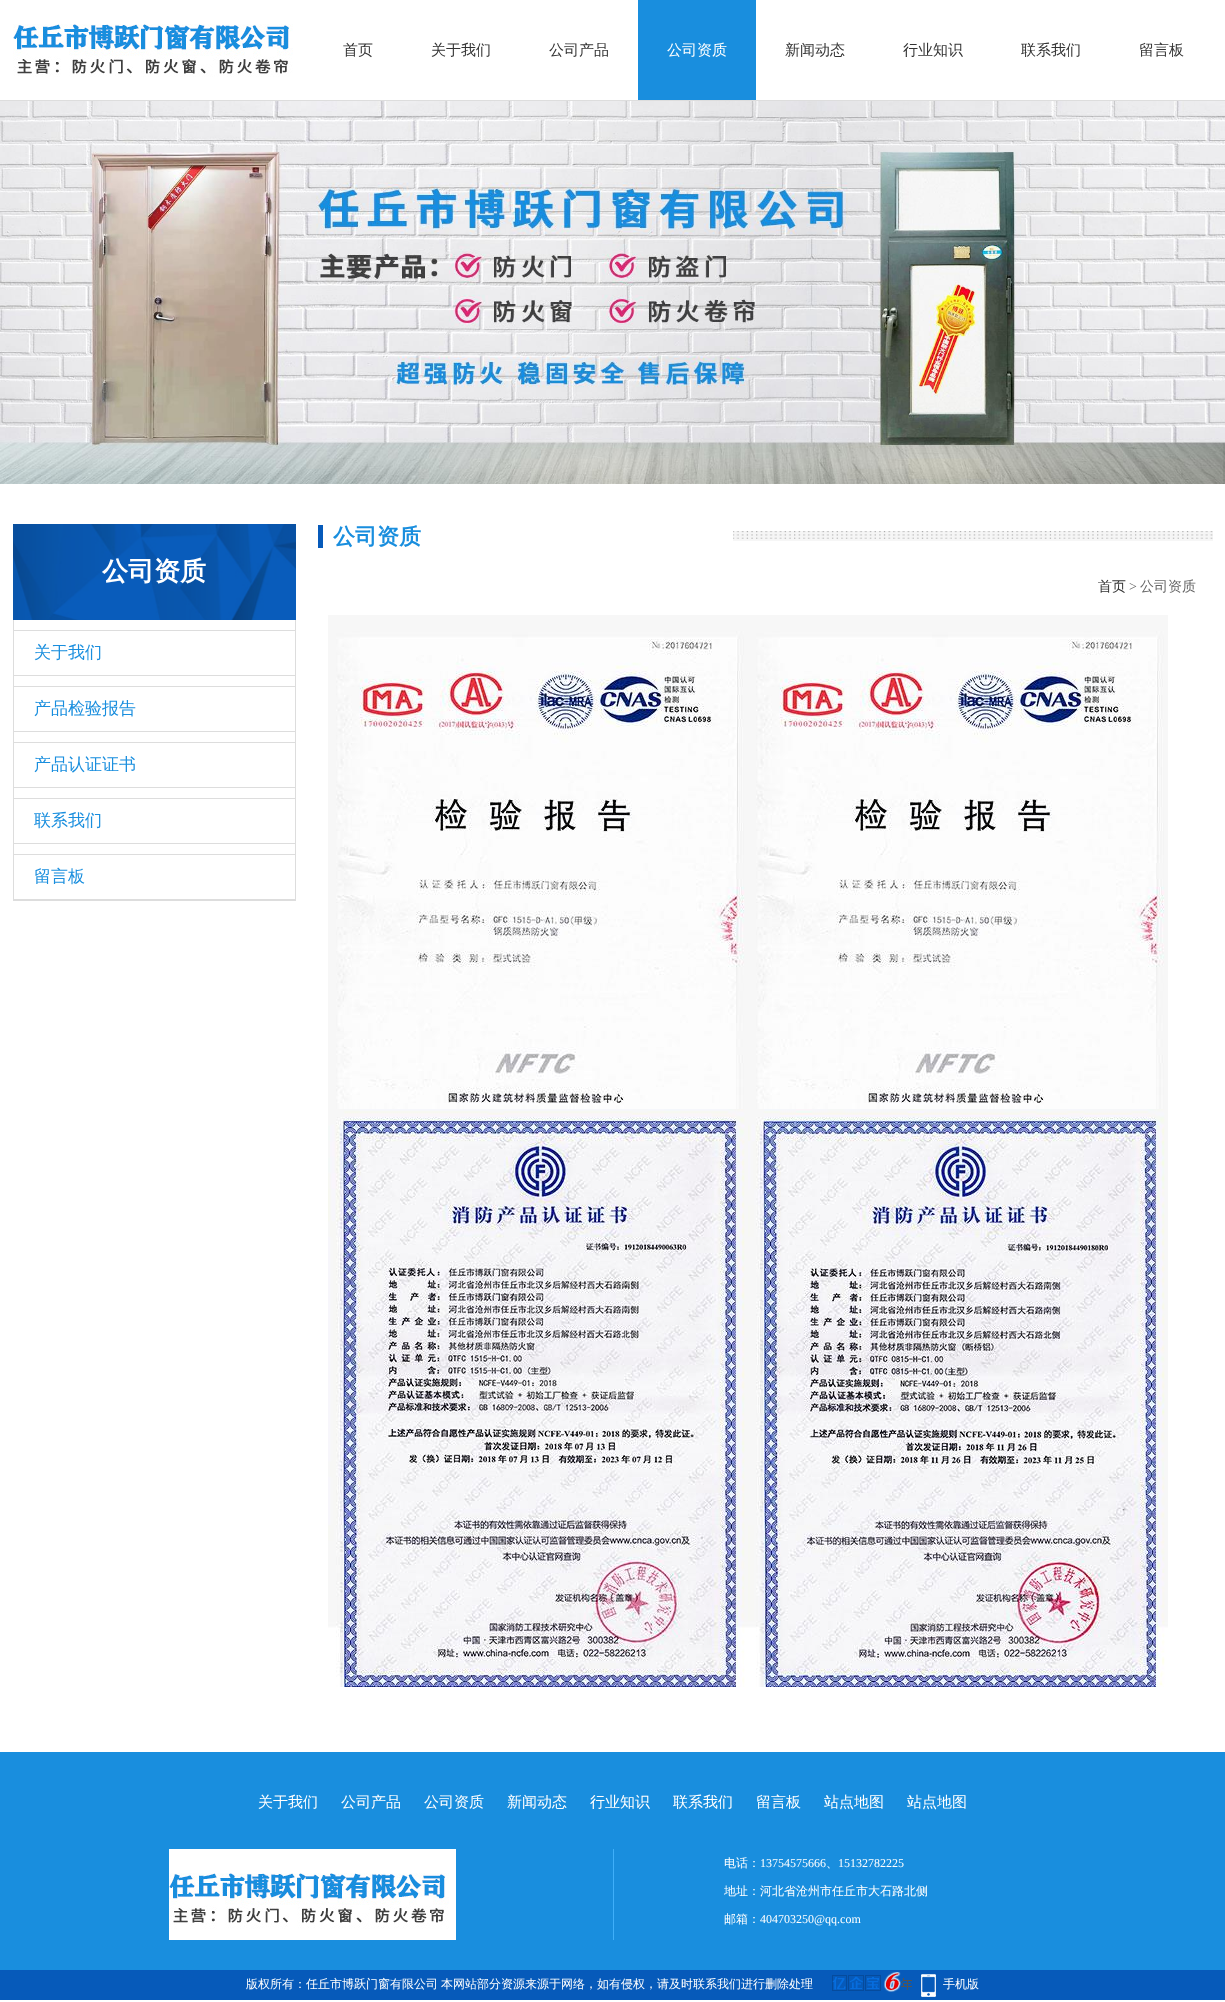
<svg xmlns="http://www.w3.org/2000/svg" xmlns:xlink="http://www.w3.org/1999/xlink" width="1225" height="2002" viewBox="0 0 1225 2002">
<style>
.cls-1{font:500 15px WenQuanYi Zen Hei;fill:#333333}
.cls-2{font:500 15px WenQuanYi Zen Hei;fill:#ffffff}
.cls-3{font:bold 26px WenQuanYi Zen Hei;fill:#ffffff}
.cls-4{font:500 17px WenQuanYi Zen Hei;fill:#198ede}
.cls-5{font:bold 22px WenQuanYi Zen Hei;fill:#198ede}
.cls-6{font:500 14px WenQuanYi Zen Hei;fill:#333333}
.cls-7{font:14px Liberation Serif;fill:#666666}
.cls-8{font:500 14px WenQuanYi Zen Hei;fill:#666666}
.cls-9{font:500 12px WenQuanYi Zen Hei;fill:#ffffff}
.cls-10{font:12px Liberation Serif;fill:#ffffff}
</style>
<rect width="100%" height="100%" fill="#ffffff"/>
<rect fill="#dddddd" x="0" y="100" width="1225" height="1"/>
<image xlink:href="image0.png" x="13" y="24" width="280" height="53"/>
<rect fill="#198ede" x="638" y="0" width="118" height="100"/>
<image xlink:href="image1.png" x="0" y="101" width="1225" height="383"/>
<image xlink:href="image2.png" x="13" y="524" width="283" height="96"/>
<rect fill="#dddddd" x="295" y="620" width="1" height="281"/>
<rect fill="#dddddd" x="13" y="900" width="283" height="1"/>
<rect fill="#dddddd" x="13" y="620" width="1" height="281"/>
<rect fill="#dddddd" x="14" y="630" width="281" height="1"/>
<rect fill="#dddddd" x="14" y="675" width="281" height="1"/>
<rect fill="#dddddd" x="14" y="686" width="281" height="1"/>
<rect fill="#dddddd" x="14" y="731" width="281" height="1"/>
<rect fill="#dddddd" x="14" y="742" width="281" height="1"/>
<rect fill="#dddddd" x="14" y="787" width="281" height="1"/>
<rect fill="#dddddd" x="14" y="798" width="281" height="1"/>
<rect fill="#dddddd" x="14" y="843" width="281" height="1"/>
<rect fill="#dddddd" x="14" y="854" width="281" height="1"/>
<rect fill="#dddddd" x="14" y="899" width="281" height="1"/>
<image xlink:href="image3.png" x="733" y="531" width="480" height="10"/>
<rect fill="#065aba" x="318" y="525" width="5" height="23"/>
<image xlink:href="image4.png" x="328" y="615" width="420" height="494"/>
<image xlink:href="image4.png" x="748" y="615" width="420" height="494"/>
<image xlink:href="image5.png" x="328" y="1109" width="420" height="578"/>
<image xlink:href="image6.png" x="748" y="1109" width="420" height="578"/>
<rect fill="#198ede" x="0" y="1752" width="1225" height="218"/>
<rect fill="#3faffa" x="613" y="1849" width="1" height="91"/>
<image xlink:href="image7.png" x="169" y="1849" width="287" height="91"/>
<rect fill="#065aba" x="0" y="1970" width="1225" height="30"/>
<image xlink:href="image8.png" x="832" y="1972" width="80" height="20"/>
<image xlink:href="image9.png" x="921" y="1974" width="15" height="23"/>
<text class="cls-1" x="343" y="55">首页</text>
<text class="cls-1" x="431" y="55">关于我们</text>
<text class="cls-1" x="549" y="55">公司产品</text>
<text class="cls-2" x="667" y="55">公司资质</text>
<text class="cls-1" x="785" y="55">新闻动态</text>
<text class="cls-1" x="903" y="55">行业知识</text>
<text class="cls-1" x="1021" y="55">联系我们</text>
<text class="cls-1" x="1139" y="55">留言板</text>
<text class="cls-3" x="102" y="580">公司资质</text>
<text class="cls-4" x="34" y="658">关于我们</text>
<text class="cls-4" x="34" y="714">产品检验报告</text>
<text class="cls-4" x="34" y="770">产品认证证书</text>
<text class="cls-4" x="34" y="826">联系我们</text>
<text class="cls-4" x="34" y="882">留言板</text>
<text class="cls-5" x="333" y="544">公司资质</text>
<text class="cls-6" x="1098" y="591">首页</text>
<text class="cls-7" x="1129" y="591">&gt;</text>
<text class="cls-8" x="1140" y="591">公司资质</text>
<text class="cls-2" x="258" y="1807">关于我们</text>
<text class="cls-2" x="341" y="1807">公司产品</text>
<text class="cls-2" x="424" y="1807">公司资质</text>
<text class="cls-2" x="507" y="1807">新闻动态</text>
<text class="cls-2" x="590" y="1807">行业知识</text>
<text class="cls-2" x="673" y="1807">联系我们</text>
<text class="cls-2" x="756" y="1807">留言板</text>
<text class="cls-2" x="824" y="1807">站点地图</text>
<text class="cls-2" x="907" y="1807">站点地图</text>
<text class="cls-9" x="724" y="1867">电话：</text>
<text class="cls-10" x="760" y="1867">13754575666</text>
<text class="cls-9" x="826" y="1867">、</text>
<text class="cls-10" x="838" y="1867">15132782225</text>
<text class="cls-9" x="724" y="1895">地址：河北省沧州市任丘市大石路北侧</text>
<text class="cls-9" x="724" y="1923">邮箱：</text>
<text class="cls-10" x="760" y="1923">404703250@qq.com</text>
<text class="cls-9" x="246" y="1988">版权所有：任丘市博跃门窗有限公司</text>
<text class="cls-9" x="441" y="1988">本网站部分资源来源于网络，如有侵权，请及时联系我们进行删除处理</text>
<text class="cls-9" x="943" y="1988">手机版</text>
</svg>
